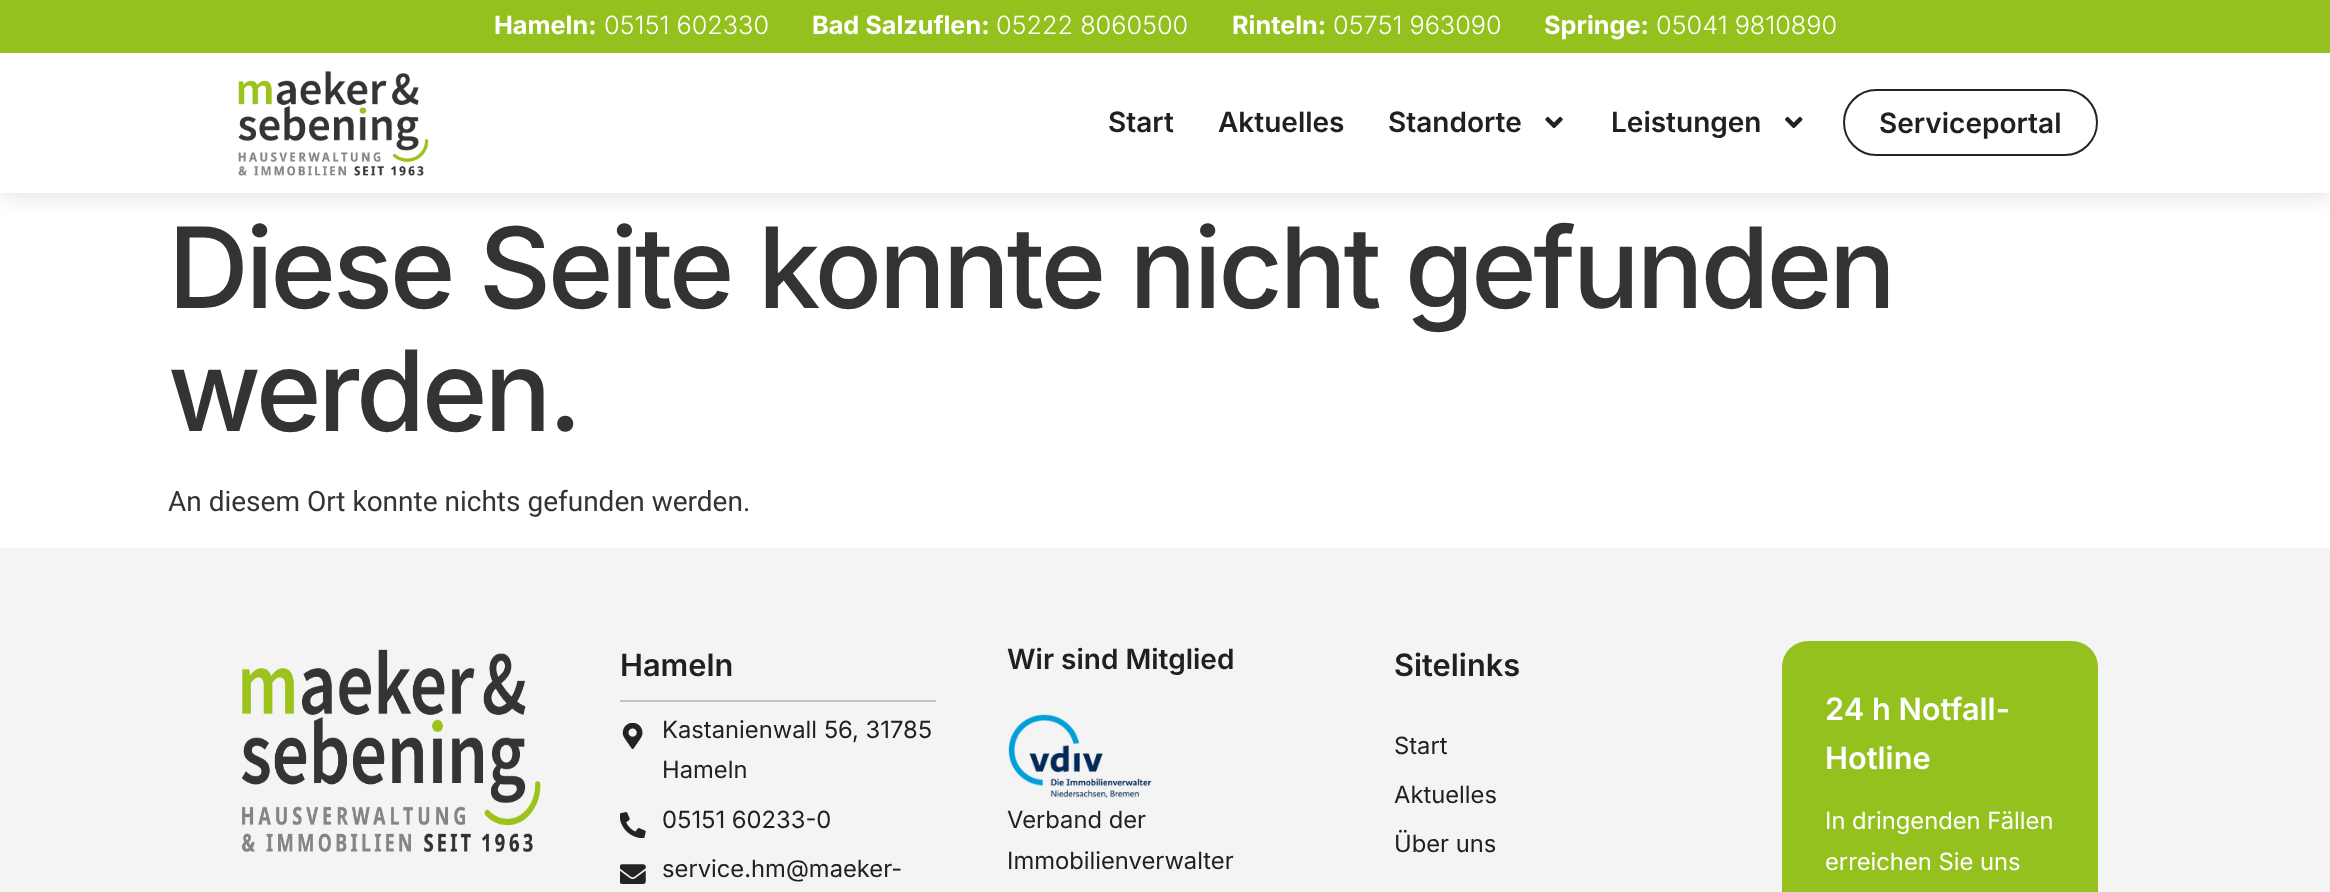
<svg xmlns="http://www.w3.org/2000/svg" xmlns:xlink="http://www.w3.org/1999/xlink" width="2330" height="892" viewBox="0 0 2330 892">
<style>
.cls-1{font:bold 25.25px Inter;fill:#ffffff}
.cls-2{font:300 25.25px Inter;fill:#ffffff}
.cls-3{font:600 28px Inter;fill:#202020}
.cls-4{font:500 112px Inter;letter-spacing:-3.35px;fill:#333333}
.cls-5{font:28px Roboto;fill:#333333}
.cls-6{font:600 30.75px Inter;fill:#202020}
.cls-7{font:23.75px Inter;fill:#202020}
.cls-8{font:600 30.75px Inter;fill:#ffffff}
.cls-9{font:23.75px Inter;fill:#ffffff}
</style>
<rect width="100%" height="100%" fill="#ffffff"/>
<rect fill="#000000" fill-opacity="0.15" filter="blur(13px)" x="0" y="53" width="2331" height="140"/>
<rect fill="#95c11f" x="0" y="0" width="2330" height="53"/>
<rect fill="#ffffff" x="0" y="53" width="2330" height="140"/>
<image xlink:href="image0.png" x="238" y="71" width="191" height="105"/>
<image xlink:href="image1.png" x="1545" y="116" width="18" height="13"/>
<image xlink:href="image2.png" x="1785" y="116" width="18" height="13"/>
<rect fill="none" stroke="#232323" stroke-width="2" x="1844" y="90" width="253" height="65" rx="32.5"/>
<rect fill="#f4f4f4" x="0" y="548" width="2330" height="344"/>
<image xlink:href="image3.png" x="242" y="649" width="299" height="203"/>
<rect fill="#c2c2c2" x="620" y="700" width="316" height="2"/>
<image xlink:href="image4.png" x="622" y="723" width="21" height="26"/>
<image xlink:href="image5.png" x="620" y="812" width="26" height="26"/>
<image xlink:href="image6.png" x="620" y="864" width="26" height="20"/>
<image xlink:href="image7.png" x="1008" y="714" width="144" height="84"/>
<rect fill="#95c11f" x="1782" y="641" width="316" height="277" rx="26"/>
<text class="cls-1" x="494" y="34">Hameln:</text>
<text class="cls-2" x="604" y="34">05151 602330</text>
<text class="cls-1" x="812" y="34">Bad Salzuflen:</text>
<text class="cls-2" x="996" y="34">05222 8060500</text>
<text class="cls-1" x="1232" y="34">Rinteln:</text>
<text class="cls-2" x="1333" y="34">05751 963090</text>
<text class="cls-1" x="1544" y="34">Springe:</text>
<text class="cls-2" x="1656" y="34">05041 9810890</text>
<text class="cls-3" x="1108" y="132">Start</text>
<text class="cls-3" x="1218" y="132">Aktuelles</text>
<text class="cls-3" x="1388" y="132">Standorte</text>
<text class="cls-3" x="1611" y="132">Leistungen</text>
<text class="cls-3" x="1879" y="133">Serviceportal</text>
<text class="cls-4"><tspan x="168" y="308">Diese Seite konnte nicht gefunden</tspan><tspan x="168" y="431">werden.</tspan></text>
<text class="cls-5" x="168" y="511">An diesem Ort konnte nichts gefunden werden.</text>
<text class="cls-6" x="620" y="676">Hameln</text>
<text class="cls-7"><tspan x="662" y="738">Kastanienwall 56, 31785</tspan><tspan x="662" y="778">Hameln</tspan></text>
<text class="cls-7" x="662" y="828">05151 60233-0</text>
<text class="cls-7" x="662" y="877">service.hm@maeker-</text>
<text class="cls-3" x="1007" y="669">Wir sind Mitglied</text>
<text class="cls-7"><tspan x="1007" y="828">Verband der</tspan><tspan x="1007" y="869">Immobilienverwalter</tspan></text>
<text class="cls-6" x="1394" y="676">Sitelinks</text>
<text class="cls-7" x="1394" y="754">Start</text>
<text class="cls-7" x="1394" y="803">Aktuelles</text>
<text class="cls-7" x="1394" y="852">Über uns</text>
<text class="cls-8"><tspan x="1825" y="720">24 h Notfall-</tspan><tspan x="1825" y="769">Hotline</tspan></text>
<text class="cls-9"><tspan x="1825" y="829">In dringenden Fällen</tspan><tspan x="1825" y="870">erreichen Sie uns</tspan></text>
</svg>
